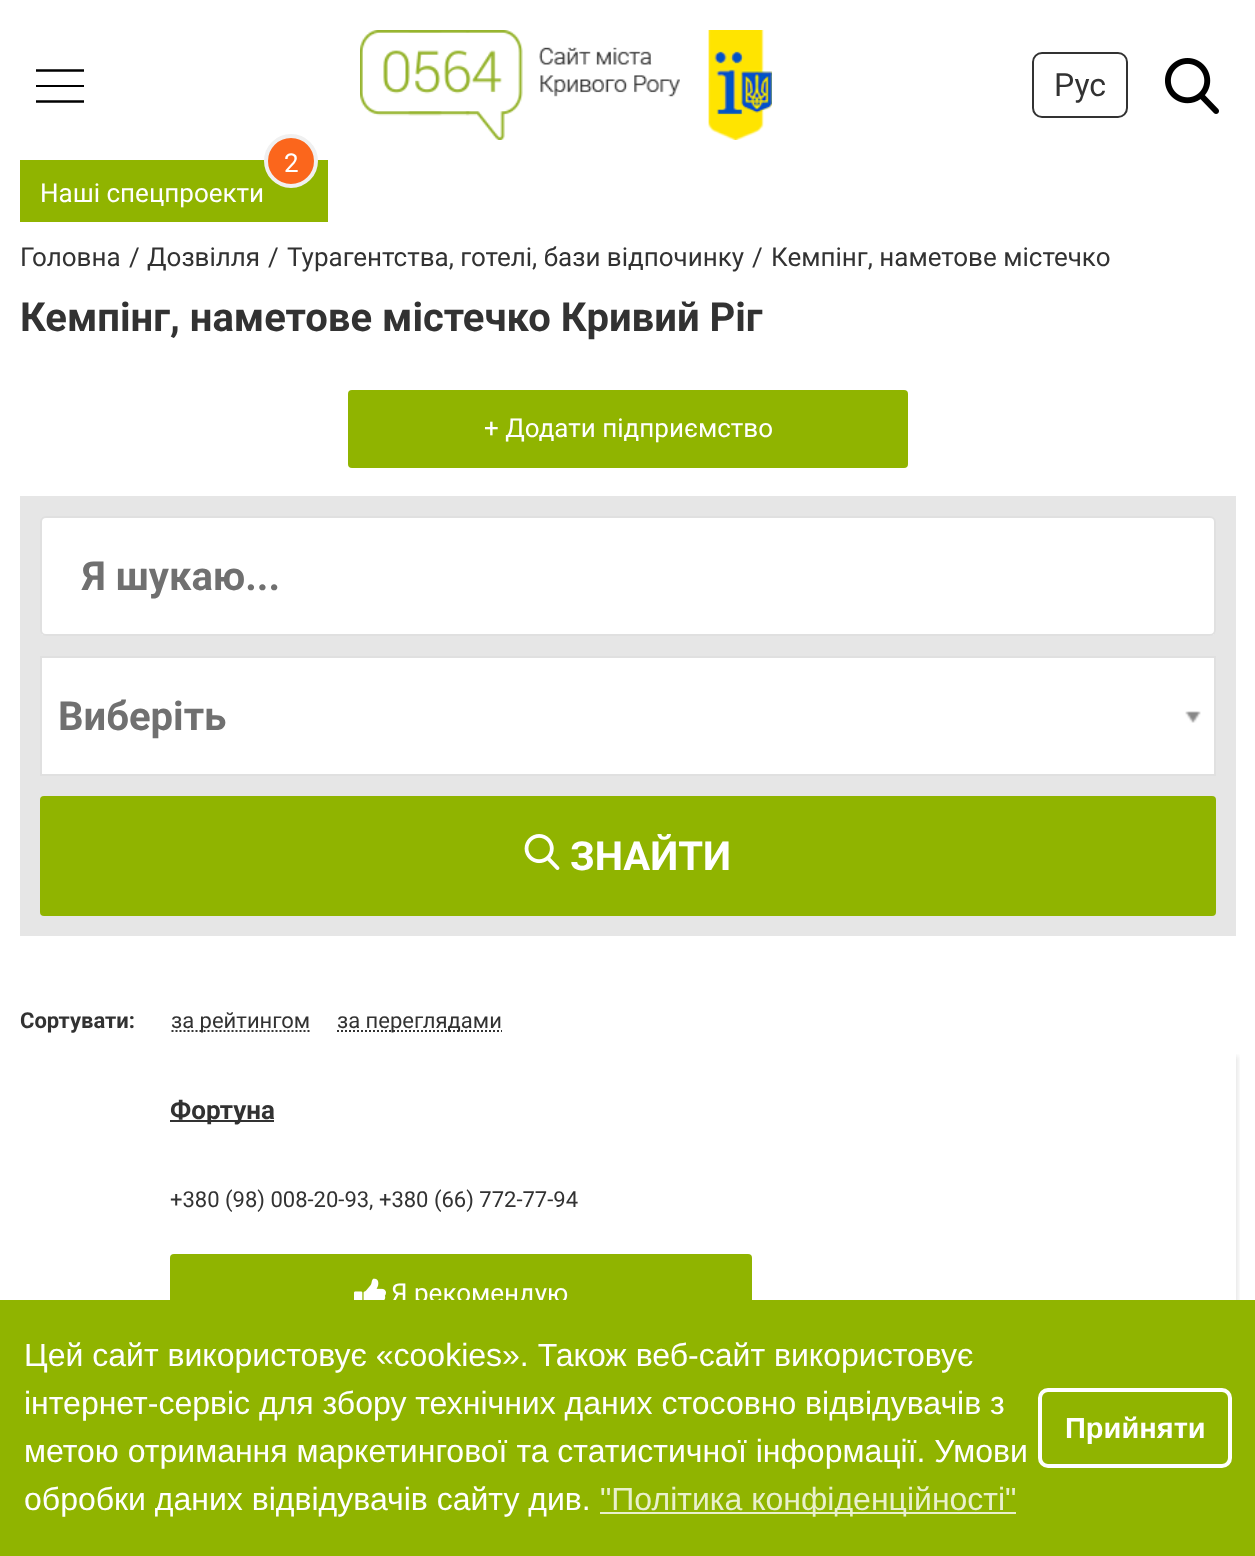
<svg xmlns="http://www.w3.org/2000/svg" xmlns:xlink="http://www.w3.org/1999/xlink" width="1255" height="1556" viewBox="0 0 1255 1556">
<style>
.cls-1{font:32px Roboto;fill:#323232}
.cls-2{font:26px Roboto;fill:#ffffff}
.cls-3{font:26px Roboto;fill:#323232}
.cls-4{font:bold 40px Roboto;fill:#323232}
.cls-5{font:bold 40px Roboto;fill:#707070}
.cls-6{font:bold 40px Roboto;fill:#ffffff}
.cls-7{font:bold 22px Roboto;fill:#323232}
.cls-8{font:22px Roboto;fill:#323232}
.cls-9{font:bold 26px Roboto;fill:#323232}
.cls-10{font:32px Liberation Sans;fill:#ffffff}
.cls-11{font:32px Liberation Sans;fill:#e9f0cc}
.cls-12{font:bold 29px Liberation Sans;fill:#ffffff}
</style>
<defs>
<clipPath id="clip1"><rect x="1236" y="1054" width="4" height="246"/></clipPath>
</defs>
<rect width="100%" height="100%" fill="#ffffff"/>
<path fill="none" stroke="#000000" stroke-width="2.4" d="M36 70.5H84"/>
<rect fill="#000000" x="36" y="85" width="48" height="2"/>
<path fill="none" stroke="#000000" stroke-width="2.4" d="M36 101.5H84"/>
<image xlink:href="image0.png" x="360" y="30" width="412" height="110"/>
<rect fill="none" stroke="#323232" stroke-width="2" x="1033" y="53" width="94" height="64" rx="9"/>
<image xlink:href="image1.png" x="1165" y="58" width="54" height="56"/>
<rect fill="#90b400" x="20" y="160" width="308" height="62"/>
<circle fill="#fb661c" stroke="#f0f0f0" stroke-width="4" cx="291" cy="161" r="25"/>
<rect fill="#90b400" x="348" y="390" width="560" height="78" rx="4"/>
<rect fill="#e6e6e6" x="20" y="496" width="1216" height="440"/>
<rect fill="#ffffff" x="40" y="516" width="1176" height="120" rx="6"/>
<rect fill="none" stroke="#323232" stroke-opacity="0.15" stroke-width="2" x="41" y="517" width="1174" height="118" rx="5"/>
<rect fill="#ffffff" stroke="#e0e0e0" stroke-width="2" x="41" y="657" width="1174" height="118"/>
<image xlink:href="image2.png" x="1185" y="711" width="16" height="12"/>
<rect fill="#90b400" x="40" y="796" width="1176" height="120" rx="4"/>
<image xlink:href="image3.png" x="524" y="834" width="36" height="36"/>
<path fill="none" stroke="#323232" stroke-width="2" stroke-dasharray="2 2" d="M171.5 1031H310.5"/>
<path fill="none" stroke="#323232" stroke-width="2" stroke-dasharray="2 2" d="M337 1031H502"/>
<g clip-path="url(#clip1)">
<rect fill="#5a5a5a" fill-opacity="0.15" filter="blur(2px)" x="22" y="1056" width="1216" height="320"/>
</g>
<rect fill="#323232" x="170" y="1120" width="104" height="2"/>
<rect fill="#90b400" x="170" y="1254" width="582" height="80" rx="4"/>
<image xlink:href="image4.png" x="354" y="1278" width="32" height="22"/>
<text class="cls-1" x="1054" y="96">Рус</text>
<text class="cls-2" x="284" y="172">2</text>
<text class="cls-2" x="40" y="202">Наші спецпроекти</text>
<text class="cls-3" x="20" y="266">Головна</text>
<text class="cls-3" x="129" y="266">/</text>
<text class="cls-3" x="147" y="266">Дозвілля</text>
<text class="cls-3" x="268" y="266">/</text>
<text class="cls-3" x="287" y="266">Турагентства, готелі, бази відпочинку</text>
<text class="cls-3" x="752" y="266">/</text>
<text class="cls-3" x="771" y="266">Кемпінг, наметове містечко</text>
<text class="cls-4" x="20" y="331">Кемпінг, наметове містечко Кривий Ріг</text>
<text class="cls-2" x="484" y="437">+ Додати підприємство</text>
<text class="cls-5" x="82" y="590">Я шукаю...</text>
<text class="cls-5" x="58" y="730">Виберіть</text>
<text class="cls-6" x="570" y="870">ЗНАЙТИ</text>
<text class="cls-7" x="20" y="1028">Сортувати:</text>
<text class="cls-8" x="171" y="1028">за рейтингом</text>
<text class="cls-8" x="337" y="1028">за переглядами</text>
<text class="cls-9" x="170" y="1119">Фортуна</text>
<text class="cls-8" x="170" y="1207">+380 (98) 008-20-93, +380 (66) 772-77-94</text>
<text class="cls-2" x="391" y="1302">Я рекомендую</text>
<rect fill="#90b400" x="0" y="1300" width="1255" height="256"/>
<text class="cls-10"><tspan x="24" y="1366">Цей сайт використовує «cookies». Також веб-сайт використовує</tspan><tspan x="24" y="1414">інтернет-сервіс для збору технічних даних стосовно відвідувачів з</tspan><tspan x="24" y="1462">метою отримання маркетингової та статистичної інформації. Умови</tspan><tspan x="24" y="1510">обробки даних відвідувачів сайту див.</tspan></text>
<rect fill="#e9f0cc" x="600" y="1512" width="416" height="2"/>
<text class="cls-11" x="600" y="1510">"Політика конфіденційності"</text>
<rect fill="none" stroke="#ffffff" stroke-width="4" x="1040" y="1390" width="190" height="76" rx="8"/>
<text class="cls-12" x="1065" y="1438">Прийняти</text>
</svg>
